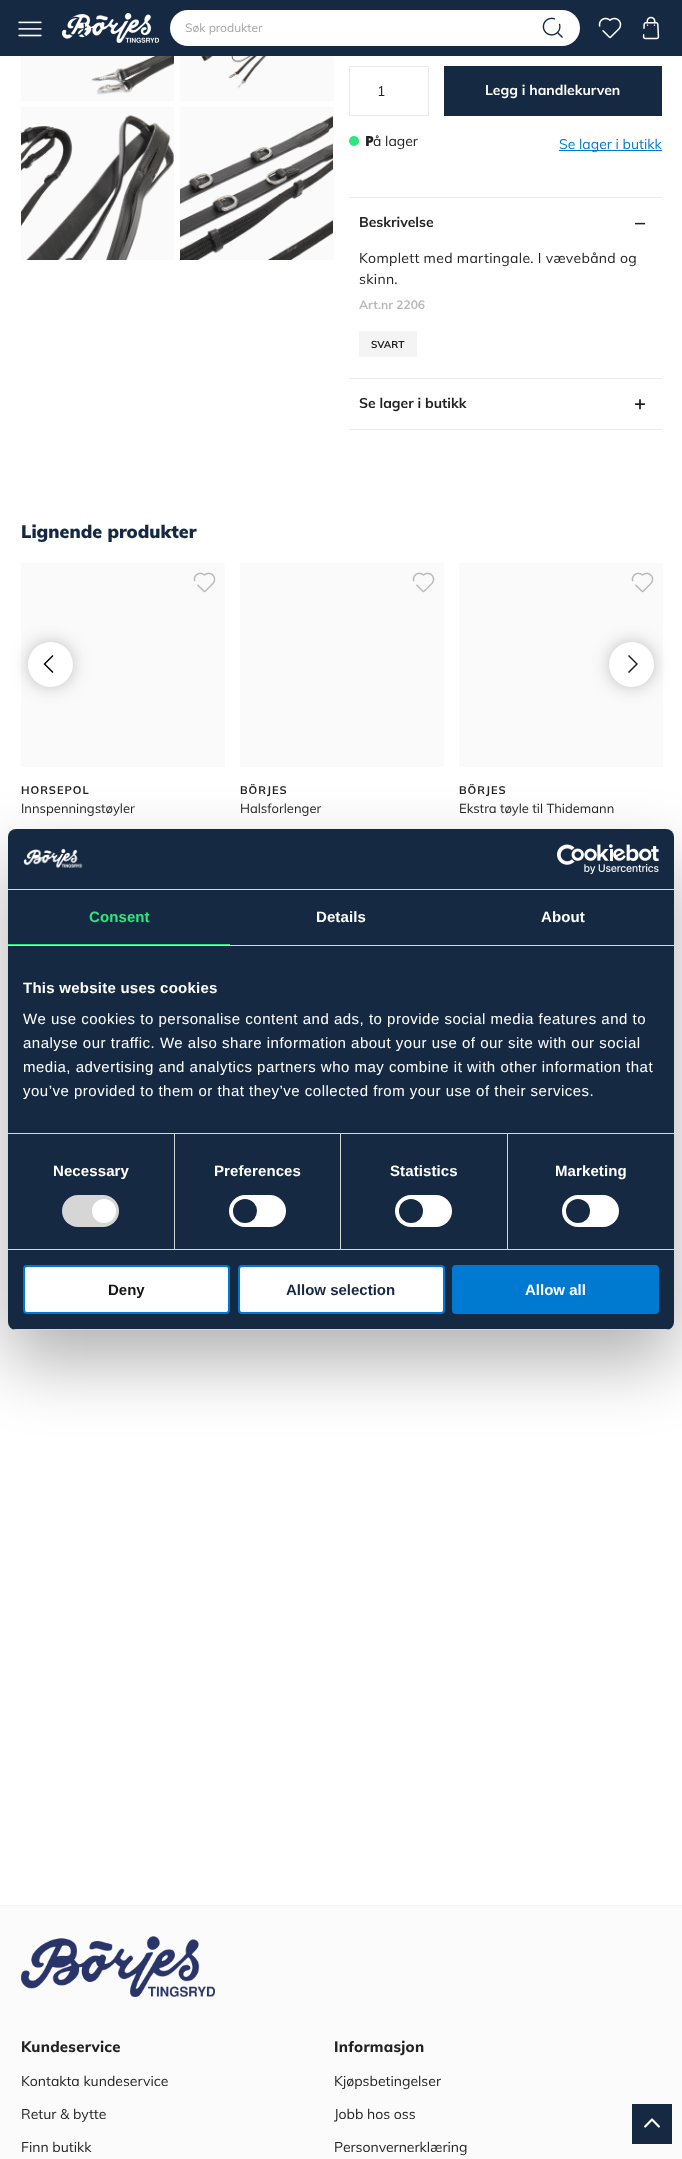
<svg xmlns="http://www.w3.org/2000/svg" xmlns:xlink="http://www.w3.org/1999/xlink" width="682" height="2159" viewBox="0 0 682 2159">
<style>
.cls-1{font:12px Muli;fill:#a6a6a6}
.cls-2{font:14px Muli;fill:#222222}
.cls-3{font:bold 14px Muli;fill:#ffffff}
.cls-4{font:900 14px Noto Sans;fill:#222222}
.cls-5{font:14px Muli;fill:#007ad1}
.cls-6{font:bold 14px Muli;fill:#222222}
.cls-7{font:bold 20px Muli;fill:#222222}
.cls-8{font:14px Muli;letter-spacing:0.3px;fill:#222222}
.cls-9{font:bold 12px Muli;fill:#b9b9b9}
.cls-10{font:bold 10px Muli;fill:#222222}
.cls-11{font:900 18px Muli;fill:#152942}
.cls-12{font:bold 11px Muli;letter-spacing:1px;fill:#222222}
.cls-13{font:13px Muli;fill:#222222}
.cls-14{font:bold 15px Liberation Sans;letter-spacing:0.1px;fill:#2ce87e}
.cls-15{font:bold 15px Liberation Sans;letter-spacing:0.1px;fill:#ffffff}
.cls-16{font:bold 15px Liberation Sans;letter-spacing:0.25px;fill:#ffffff}
.cls-17{font:15px Liberation Sans;letter-spacing:0.5px;fill:#ffffff}
.cls-18{font:bold 15px Liberation Sans;fill:#141414}
.cls-19{font:bold 15px Liberation Sans;fill:#152942}
.cls-20{font:bold 15px Liberation Sans;fill:#ffffff}
.cls-21{font:800 15px Muli;letter-spacing:0.25px;fill:#222222}
</style>
<defs>
<clipPath id="clip1"><rect x="8" y="829" width="666" height="501" rx="8"/></clipPath>
</defs>
<rect width="100%" height="100%" fill="#ffffff"/>
<rect fill="#152942" x="0" y="0" width="682" height="56"/>
<image xlink:href="image0.png" x="18" y="21" width="24" height="16"/>
<image xlink:href="image2.png" x="62" y="13" width="97" height="30"/>
<image xlink:href="image1.png" x="66" y="16" width="20" height="21"/>
<image xlink:href="image3.png" x="598" y="17" width="24" height="22"/>
<image xlink:href="image4.png" x="642" y="16" width="18" height="24"/>
<rect fill="#ffffff" x="170" y="10" width="410" height="36" rx="18"/>
<image xlink:href="image5.png" x="542" y="17" width="21" height="21"/>
<rect fill="#fafafa" x="21" y="56" width="153" height="45"/>
<image xlink:href="image6.png" x="41" y="56" width="133" height="39"/>
<rect fill="#fafafa" x="180" y="56" width="154" height="45"/>
<image xlink:href="image7.png" x="183" y="56" width="127" height="33"/>
<rect fill="#fafafa" x="21" y="107" width="153" height="8"/>
<image xlink:href="image8.png" x="21" y="115" width="153" height="145"/>
<rect fill="#fafafa" x="180" y="107" width="154" height="153"/>
<image xlink:href="image9.png" x="180" y="115" width="153" height="145"/>
<rect fill="none" stroke="#ebebeb" x="349.5" y="66.5" width="79" height="49"/>
<rect fill="#152942" x="444" y="66" width="218" height="50"/>
<circle fill="#2ce87e" cx="354" cy="141" r="5"/>
<rect fill="#007ad1" x="559" y="150" width="103" height="1"/>
<rect fill="#ebebeb" x="349" y="197" width="313" height="1"/>
<rect fill="#ebebeb" x="349" y="378" width="313" height="1"/>
<rect fill="#f4f4f4" x="359" y="331" width="58" height="26"/>
<rect fill="#ebebeb" x="349" y="429" width="313" height="1"/>
<rect fill="#fafafa" x="21" y="563" width="204" height="204"/>
<rect fill="#353535" fill-opacity="0.76" filter="blur(11px)" x="35" y="649" width="31" height="31" rx="15.5"/>
<circle fill="#ffffff" cx="50.5" cy="664.5" r="22.5"/>
<path fill="#000000" d="M52.5 673L53.5 672L45.5 664L53.5 656L52.5 655L43.5 664Z"/>
<rect fill="#fafafa" x="459" y="563" width="204" height="204"/>
<rect fill="#353535" fill-opacity="0.76" filter="blur(11px)" x="616" y="649" width="31" height="31" rx="15.5"/>
<circle fill="#ffffff" cx="631.5" cy="664.5" r="22.5"/>
<path fill="#1c1b1f" d="M629 673L628 672L636 664L628 656L629 655L638 664Z"/>
<image xlink:href="image10.png" x="193" y="572" width="23" height="21"/>
<rect fill="#fafafa" x="240" y="563" width="204" height="204"/>
<image xlink:href="image10.png" x="412" y="572" width="23" height="21"/>
<image xlink:href="image10.png" x="631" y="572" width="23" height="21"/>
<rect fill="#000000" fill-opacity="0.3" filter="blur(34px)" x="8" y="861" width="666" height="501" rx="8"/>
<rect fill="#152942" x="8" y="829" width="666" height="501" rx="8"/>
<rect fill="#d6d6d6" x="8" y="889" width="666" height="1"/>
<image xlink:href="image11.png" x="23" y="848" width="60" height="20"/>
<image xlink:href="image12.png" x="557" y="844" width="102" height="30"/>
<rect fill="#d6d6d6" x="8" y="945" width="666" height="1"/>
<rect fill="#2ce87e" x="8" y="944" width="222" height="1"/>
<rect fill="#d6d6d6" x="8" y="1133" width="666" height="1"/>
<rect fill="#d6d6d6" x="8" y="1249" width="666" height="1"/>
<rect fill="#d6d6d6" x="174" y="1134" width="1" height="115"/>
<rect fill="#d6d6d6" x="62" y="1195" width="57" height="32" rx="16"/>
<circle fill="#ffffff" cx="104" cy="1211" r="12"/>
<rect fill="#d6d6d6" x="340" y="1134" width="1" height="115"/>
<rect fill="#ffffff" x="229" y="1195" width="57" height="32" rx="16"/>
<circle fill="#152942" cx="245" cy="1211" r="12"/>
<rect fill="#d6d6d6" x="507" y="1134" width="1" height="115"/>
<rect fill="#ffffff" x="395" y="1195" width="57" height="32" rx="16"/>
<circle fill="#152942" cx="411" cy="1211" r="12"/>
<rect fill="#ffffff" x="562" y="1195" width="57" height="32" rx="16"/>
<circle fill="#152942" cx="578" cy="1211" r="12"/>
<g clip-path="url(#clip1)">
<rect fill="#d6d6d6" x="8" y="1329" width="666" height="1"/>
</g>
<rect fill="#ffffff" stroke="#007ad1" stroke-width="2" x="24" y="1266" width="205" height="47" rx="3"/>
<rect fill="#ffffff" stroke="#007ad1" stroke-width="2" x="239" y="1266" width="205" height="47" rx="3"/>
<rect fill="#007ad1" stroke="#007ad1" stroke-width="2" x="453" y="1266" width="205" height="47" rx="3"/>
<rect fill="#fbfbfb" x="0" y="1906" width="682" height="253"/>
<rect fill="#f4f4f4" x="0" y="1905" width="682" height="1"/>
<image xlink:href="image13.png" x="21" y="1936" width="194" height="61"/>
<rect fill="#152942" x="632" y="2104" width="40" height="40"/>
<image xlink:href="image14.png" x="644" y="2118" width="16" height="10"/>
<text class="cls-1" x="185" y="32">Søk produkter</text>
<text class="cls-2" x="377" y="96">1</text>
<text class="cls-3" x="485" y="95">Legg i handlekurven</text>
<text class="cls-4" x="365" y="146">P</text>
<text class="cls-2" x="373" y="146">å lager</text>
<text class="cls-5" x="559" y="149">Se lager i butikk</text>
<text class="cls-6" x="359" y="227">Beskrivelse</text>
<text class="cls-7" x="635" y="229">–</text>
<text class="cls-8"><tspan x="359" y="263">Komplett med martingale. I vævebånd og</tspan><tspan x="359" y="284">skinn.</tspan></text>
<text class="cls-9" x="359" y="309">Art.nr 2206</text>
<text class="cls-10" x="371" y="348">SVART</text>
<text class="cls-6" x="359" y="408">Se lager i butikk</text>
<text class="cls-7" x="634" y="410">+</text>
<text class="cls-11" x="21" y="538">Lignende produkter</text>
<text class="cls-12" x="21" y="794">HORSEPOL</text>
<text class="cls-13" x="21" y="813">Innspenningstøyler</text>
<text class="cls-12" x="240" y="794">BÖRJES</text>
<text class="cls-13" x="240" y="813">Halsforlenger</text>
<text class="cls-12" x="459" y="794">BÖRJES</text>
<text class="cls-13" x="459" y="813">Ekstra tøyle til Thidemann</text>
<text class="cls-14" x="89" y="922">Consent</text>
<text class="cls-15" x="316" y="922">Details</text>
<text class="cls-15" x="541" y="922">About</text>
<text class="cls-16" x="23" y="993">This website uses cookies</text>
<text class="cls-17"><tspan x="23" y="1024">We use cookies to personalise content and ads, to provide social media features and to</tspan><tspan x="23" y="1048">analyse our traffic. We also share information about your use of our site with our social</tspan><tspan x="23" y="1072">media, advertising and analytics partners who may combine it with other information that</tspan><tspan x="23" y="1096">you’ve provided to them or that they’ve collected from your use of their services.</tspan></text>
<text class="cls-15" x="53" y="1176">Necessary</text>
<text class="cls-15" x="214" y="1176">Preferences</text>
<text class="cls-15" x="390" y="1176">Statistics</text>
<text class="cls-15" x="555" y="1176">Marketing</text>
<text class="cls-18" x="108" y="1295">Deny</text>
<text class="cls-19" x="286" y="1295">Allow selection</text>
<text class="cls-20" x="525" y="1295">Allow all</text>
<text class="cls-21" x="21" y="2052">Kundeservice</text>
<text class="cls-2" x="21" y="2086">Kontakta kundeservice</text>
<text class="cls-2" x="21" y="2119">Retur &amp; bytte</text>
<text class="cls-2" x="21" y="2152">Finn butikk</text>
<text class="cls-21" x="334" y="2052">Informasjon</text>
<text class="cls-2" x="334" y="2086">Kjøpsbetingelser</text>
<text class="cls-2" x="334" y="2119">Jobb hos oss</text>
<text class="cls-2" x="334" y="2152">Personvernerklæring</text>
</svg>
